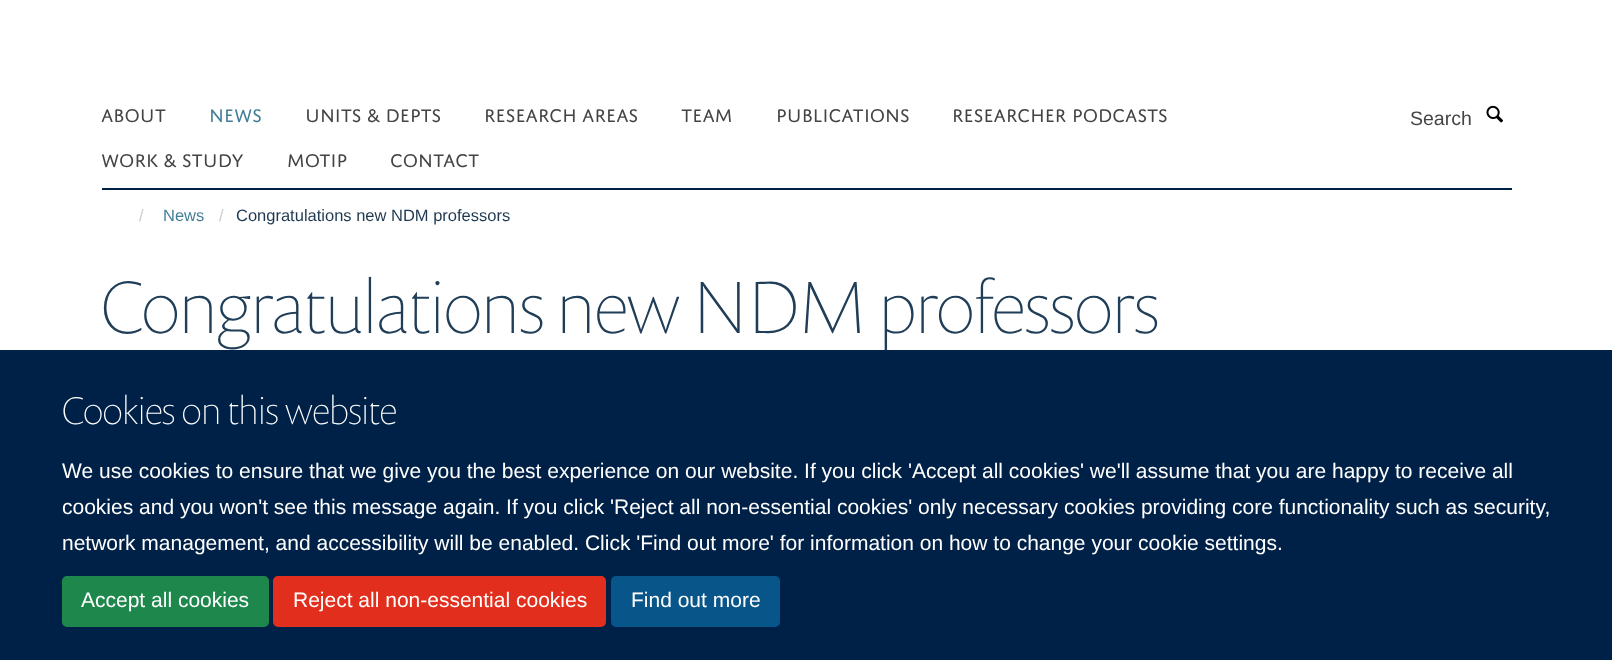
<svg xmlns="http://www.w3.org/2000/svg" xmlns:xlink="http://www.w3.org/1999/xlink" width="1612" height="660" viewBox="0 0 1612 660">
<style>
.cls-1{font:19.5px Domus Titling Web;fill:#444444}
.cls-2{font:19.5px Domus Titling Web;fill:#437e96}
.cls-3{font:19.5px Liberation Sans;fill:#444444}
.cls-4{font:16.5px Liberation Sans;fill:#cccccc}
.cls-5{font:16.5px Liberation Sans;fill:#437e96}
.cls-6{font:16.5px Liberation Sans;fill:#1d3850}
.cls-7{font:100 75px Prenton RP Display;fill:#203e58}
.cls-8{font:100 39px Prenton RP Display;fill:#ffffff}
.cls-9{font:21px Liberation Sans;fill:#ffffff}
</style>
<rect width="100%" height="100%" fill="#ffffff"/>
<rect fill="#002147" x="102" y="188" width="1410" height="2"/>
<image xlink:href="image0.png" x="1486" y="105" width="17" height="18"/>
<rect fill="#002147" x="0" y="350" width="1612" height="310"/>
<rect fill="#1e874b" stroke="#1e874b" stroke-width="2" x="63" y="577" width="205" height="49" rx="4"/>
<rect fill="#e22e1c" stroke="#e22e1c" stroke-width="2" x="274" y="577" width="331" height="49" rx="4"/>
<rect fill="#085589" stroke="#085589" stroke-width="2" x="612" y="577" width="167" height="49" rx="4"/>
<text class="cls-1" x="101" y="122">ABOUT</text>
<text class="cls-2" x="209" y="122">NEWS</text>
<text class="cls-1" x="305" y="122">UNITS &amp; DEPTS</text>
<text class="cls-1" x="484" y="122">RESEARCH AREAS</text>
<text class="cls-1" x="681" y="122">TEAM</text>
<text class="cls-1" x="776" y="122">PUBLICATIONS</text>
<text class="cls-1" x="952" y="122">RESEARCHER PODCASTS</text>
<text class="cls-1" x="101" y="167">WORK &amp; STUDY</text>
<text class="cls-1" x="287" y="167">MOTIP</text>
<text class="cls-1" x="390" y="167">CONTACT</text>
<text class="cls-3" x="1410" y="125">Search</text>
<text class="cls-4" x="139" y="221">/</text>
<text class="cls-5" x="163" y="221">News</text>
<text class="cls-4" x="219" y="221">/</text>
<text class="cls-6" x="236" y="221">Congratulations new NDM professors</text>
<text class="cls-7" x="101" y="333">Congratulations new NDM professors</text>
<text class="cls-8" x="62" y="424">Cookies on this website</text>
<text class="cls-9"><tspan x="62" y="478">We use cookies to ensure that we give you the best experience on our website. If you click 'Accept all cookies' we'll assume that you are happy to receive all</tspan><tspan x="62" y="514">cookies and you won't see this message again. If you click 'Reject all non-essential cookies' only necessary cookies providing core functionality such as security,</tspan><tspan x="62" y="550">network management, and accessibility will be enabled. Click 'Find out more' for information on how to change your cookie settings.</tspan></text>
<text class="cls-9" x="81" y="607">Accept all cookies</text>
<text class="cls-9" x="293" y="607">Reject all non-essential cookies</text>
<text class="cls-9" x="631" y="607">Find out more</text>
</svg>
